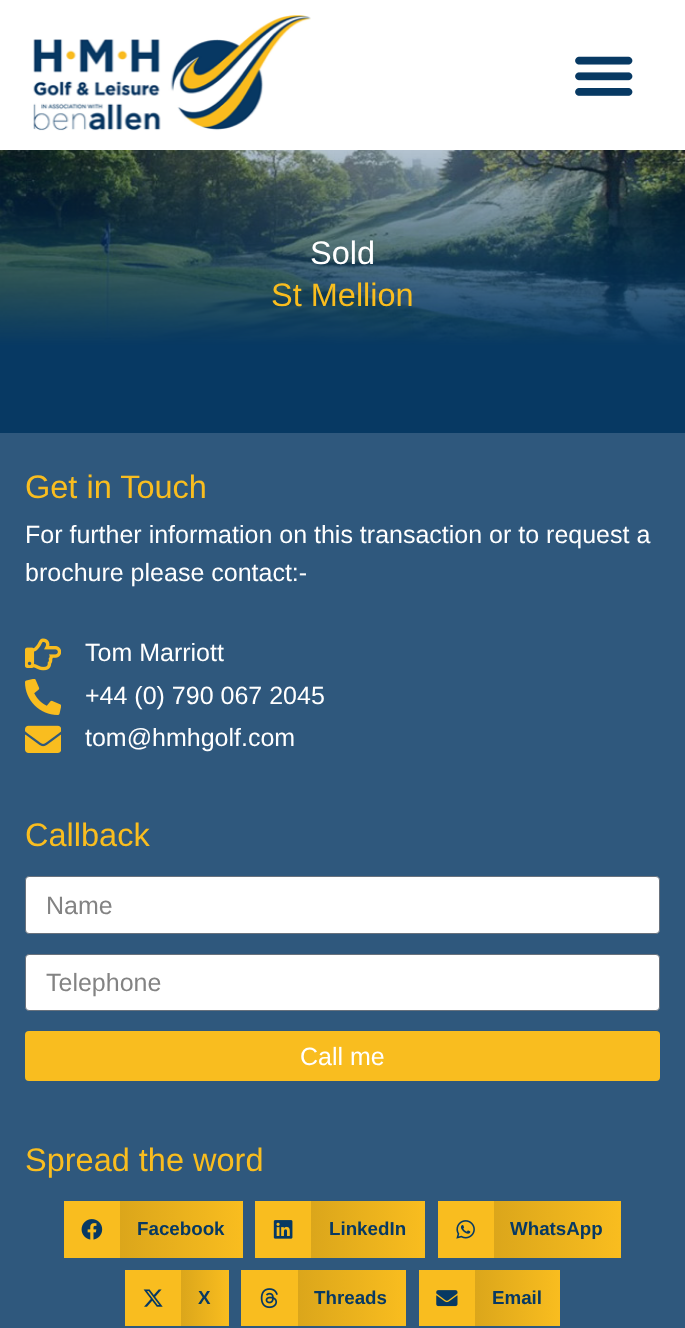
<svg xmlns="http://www.w3.org/2000/svg" xmlns:xlink="http://www.w3.org/1999/xlink" width="685" height="1328" viewBox="0 0 685 1328">
<style>
.cls-1{font:32.5px Liberation Sans;fill:#ffffff}
.cls-2{font:32.5px Liberation Sans;fill:#f9bd1f}
.cls-3{font:25px Liberation Sans;fill:#ffffff}
.cls-4{font:25px Liberation Sans;fill:#838383}
.cls-5{font:bold 18.75px Liberation Sans;fill:#073963}
</style>
<defs>
<linearGradient id="g1" gradientUnits="userSpaceOnUse" x1="120" y1="1229" x2="243" y2="1229"><stop offset="0" stop-color="#dba61b"/><stop offset="1" stop-color="#f9bd1f"/></linearGradient>
<linearGradient id="g2" gradientUnits="userSpaceOnUse" x1="311" y1="1229" x2="425" y2="1229"><stop offset="0" stop-color="#dba61b"/><stop offset="1" stop-color="#f9bd1f"/></linearGradient>
<linearGradient id="g3" gradientUnits="userSpaceOnUse" x1="494" y1="1229" x2="621" y2="1229"><stop offset="0" stop-color="#dba61b"/><stop offset="1" stop-color="#f9bd1f"/></linearGradient>
<linearGradient id="g4" gradientUnits="userSpaceOnUse" x1="181" y1="1298" x2="229" y2="1298"><stop offset="0" stop-color="#dba61b"/><stop offset="1" stop-color="#f9bd1f"/></linearGradient>
<linearGradient id="g5" gradientUnits="userSpaceOnUse" x1="298" y1="1298" x2="406" y2="1298"><stop offset="0" stop-color="#dba61b"/><stop offset="1" stop-color="#f9bd1f"/></linearGradient>
<linearGradient id="g6" gradientUnits="userSpaceOnUse" x1="475" y1="1298" x2="560" y2="1298"><stop offset="0" stop-color="#dba61b"/><stop offset="1" stop-color="#f9bd1f"/></linearGradient>
</defs>
<rect width="100%" height="100%" fill="#ffffff"/>
<image xlink:href="image0.png" x="33" y="15" width="278" height="116"/>
<image xlink:href="image1.png" x="575" y="56" width="58" height="40"/>
<image xlink:href="image2.png" x="0" y="150" width="685" height="226"/>
<rect fill="#073963" x="0" y="376" width="685" height="57"/>
<rect fill="#2f587d" x="0" y="433" width="685" height="895"/>
<image xlink:href="image3.png" x="25" y="638" width="36" height="33"/>
<image xlink:href="image4.png" x="25" y="679" width="36" height="36"/>
<image xlink:href="image5.png" x="25" y="725" width="36" height="28"/>
<rect fill="#ffffff" stroke="#69727d" x="25.5" y="876.5" width="634" height="57" rx="3.5"/>
<rect fill="#ffffff" stroke="#69727d" x="25.5" y="954.5" width="634" height="56" rx="3.5"/>
<rect fill="#f9bd1f" x="25" y="1031" width="635" height="50" rx="4"/>
<rect fill="#f9bd1f" x="64" y="1201" width="56" height="57"/>
<image xlink:href="image6.png" x="81" y="1219" width="22" height="21"/>
<rect fill="url(#g1)" x="120" y="1201" width="123" height="57"/>
<rect fill="#f9bd1f" x="255" y="1201" width="56" height="57"/>
<image xlink:href="image7.png" x="273" y="1220" width="20" height="19"/>
<rect fill="url(#g2)" x="311" y="1201" width="114" height="57"/>
<rect fill="#f9bd1f" x="438" y="1201" width="56" height="57"/>
<image xlink:href="image8.png" x="456" y="1220" width="19" height="19"/>
<rect fill="url(#g3)" x="494" y="1201" width="127" height="57"/>
<rect fill="#f9bd1f" x="125" y="1270" width="56" height="56"/>
<image xlink:href="image9.png" x="143" y="1289" width="20" height="18"/>
<rect fill="url(#g4)" x="181" y="1270" width="48" height="56"/>
<rect fill="#f9bd1f" x="241" y="1270" width="57" height="56"/>
<image xlink:href="image10.png" x="260" y="1288" width="18" height="21"/>
<rect fill="url(#g5)" x="298" y="1270" width="108" height="56"/>
<rect fill="#f9bd1f" x="419" y="1270" width="56" height="56"/>
<image xlink:href="image11.png" x="436" y="1290" width="22" height="17"/>
<rect fill="url(#g6)" x="475" y="1270" width="85" height="56"/>
<text class="cls-1" x="310" y="264">Sold</text>
<text class="cls-2" x="271" y="306">St Mellion</text>
<text class="cls-2" x="25" y="498">Get in Touch</text>
<text class="cls-3"><tspan x="25" y="543">For further information on this transaction or to request a</tspan><tspan x="25" y="581">brochure please contact:-</tspan></text>
<text class="cls-3"><tspan x="85" y="661">Tom Marriott</tspan><tspan x="85" y="704">+44 (0) 790 067 2045</tspan><tspan x="85" y="746">tom@hmhgolf.com</tspan></text>
<text class="cls-2" x="25" y="846">Callback</text>
<text class="cls-4" x="46" y="914">Name</text>
<text class="cls-4" x="46" y="991">Telephone</text>
<text class="cls-3" x="300" y="1065">Call me</text>
<text class="cls-2" x="25" y="1171">Spread the word</text>
<text class="cls-5" x="137" y="1235">Facebook</text>
<text class="cls-5" x="329" y="1235">LinkedIn</text>
<text class="cls-5" x="510" y="1235">WhatsApp</text>
<text class="cls-5" x="198" y="1304">X</text>
<text class="cls-5" x="314" y="1304">Threads</text>
<text class="cls-5" x="492" y="1304">Email</text>
</svg>
